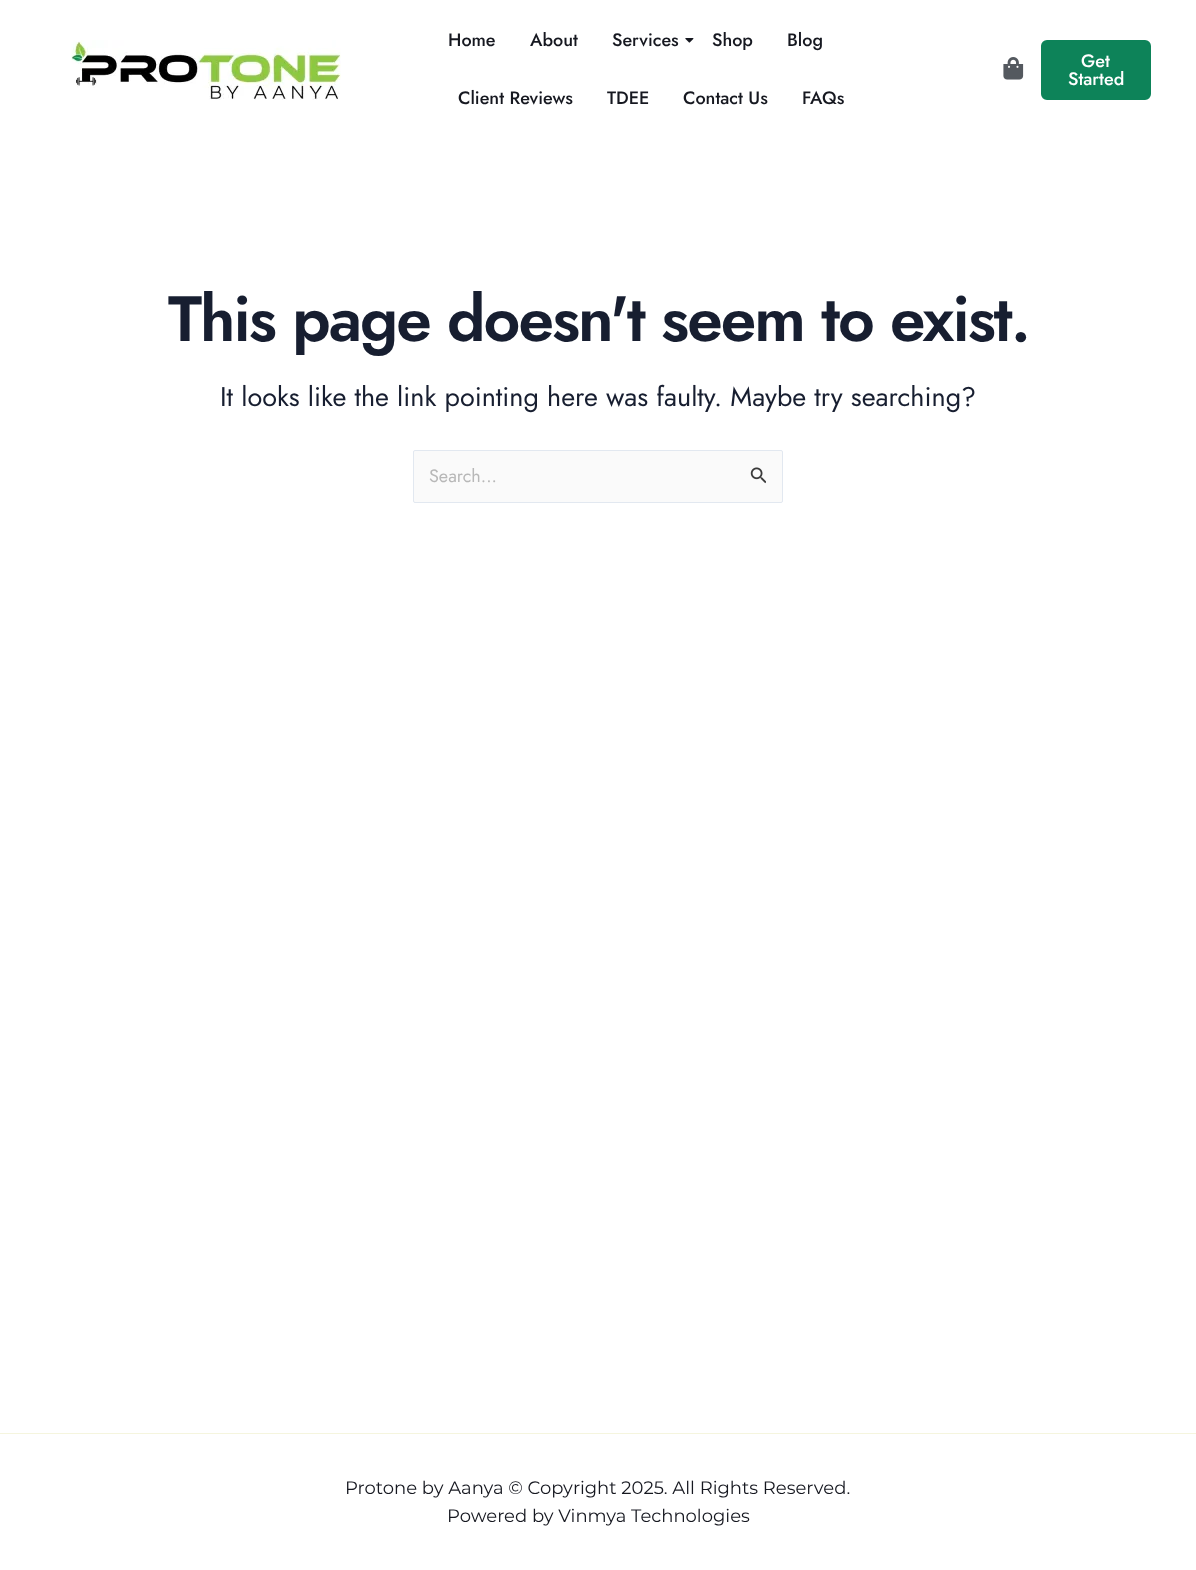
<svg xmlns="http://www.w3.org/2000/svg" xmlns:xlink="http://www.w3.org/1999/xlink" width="1196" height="1570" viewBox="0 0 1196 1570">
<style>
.cls-1{font:500 18px Jost;fill:#161820}
.cls-2{font:500 18px Jost;fill:#ffffff}
.cls-3{font:600 64px Jost;letter-spacing:-2px;fill:#171e30}
.cls-4{font:27px Jost;fill:#171e30}
.cls-5{font:18px Jost;fill:#b8b8b8}
.cls-6{font:18px Montserrat;fill:#161820}
</style>
<rect width="100%" height="100%" fill="#ffffff"/>
<image xlink:href="image0.png" x="71" y="40" width="270" height="60"/>
<image xlink:href="image1.png" x="685" y="38" width="9" height="5"/>
<image xlink:href="image2.png" x="1003" y="57" width="21" height="23"/>
<rect fill="#0d8359" stroke="#0d8359" stroke-width="2" x="1042" y="41" width="108" height="58" rx="5"/>
<rect fill="#fafafa" stroke="#e2e8f0" x="413.5" y="450.5" width="369" height="52" rx="1.5"/>
<image xlink:href="image3.png" x="750" y="467" width="16" height="17"/>
<rect fill="#f5f5de" x="0" y="1433" width="1196" height="1"/>
<text class="cls-1" x="448" y="46">Home</text>
<text class="cls-1" x="530" y="46">About</text>
<text class="cls-1" x="612" y="46">Services</text>
<text class="cls-1" x="712" y="46">Shop</text>
<text class="cls-1" x="787" y="46">Blog</text>
<text class="cls-1" x="458" y="104">Client Reviews</text>
<text class="cls-1" x="607" y="104">TDEE</text>
<text class="cls-1" x="683" y="104">Contact Us</text>
<text class="cls-1" x="802" y="104">FAQs</text>
<text class="cls-2" x="1081" y="67">Get</text>
<text class="cls-2" x="1068" y="85">Started</text>
<text class="cls-3" x="168" y="341">This page doesn't seem to exist.</text>
<text class="cls-4" x="220" y="406">It looks like the link pointing here was faulty. Maybe try searching?</text>
<text class="cls-5" x="429" y="482">Search...</text>
<text class="cls-6" x="345" y="1494">Protone by Aanya © Copyright 2025. All Rights Reserved.</text>
<text class="cls-6" x="447" y="1522">Powered by Vinmya Technologies</text>
</svg>
